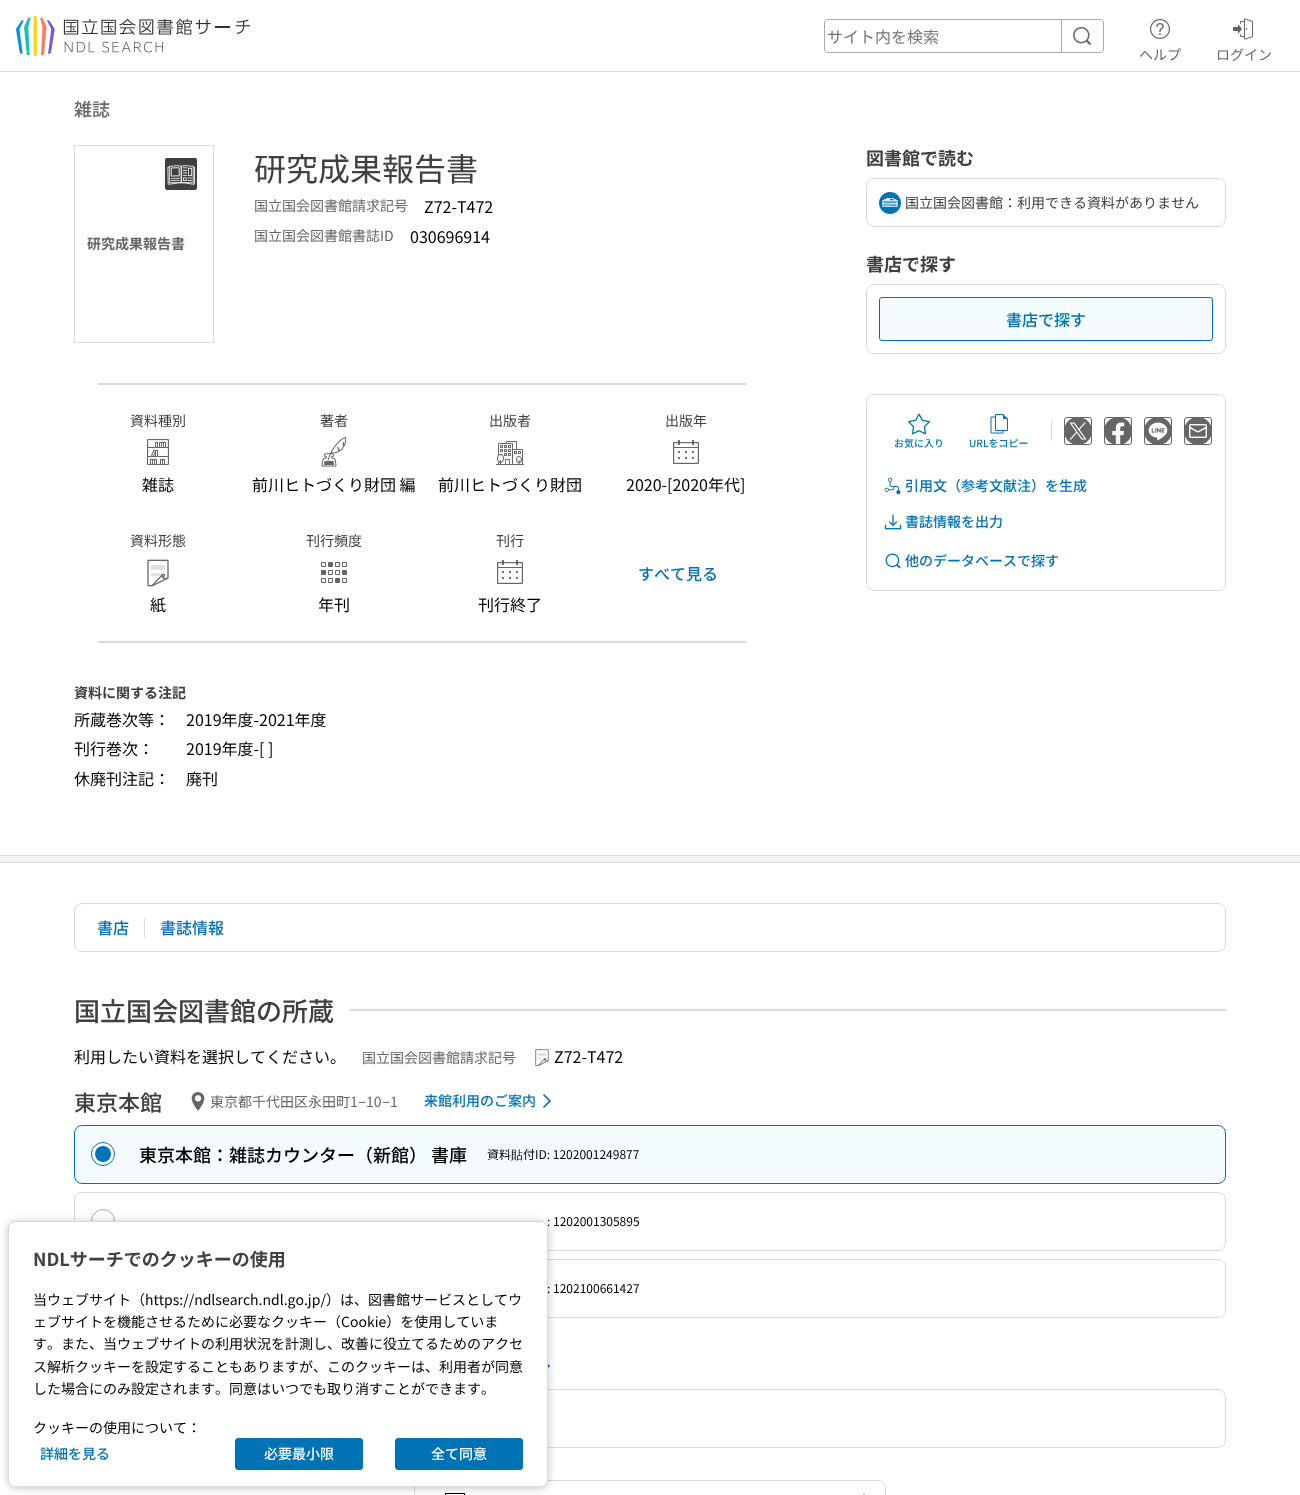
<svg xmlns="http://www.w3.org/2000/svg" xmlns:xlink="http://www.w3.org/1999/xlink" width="1300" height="1495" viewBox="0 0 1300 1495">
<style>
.cls-1{font:16px Noto Sans JP;fill:#767676}
.cls-2{font:14px Noto Sans JP;fill:#666666}
.cls-3{font:500 18px Noto Sans JP;fill:#666666}
.cls-4{font:bold 14px Noto Sans JP;fill:#666666}
.cls-5{font:32px Noto Sans JP;fill:#404040}
.cls-6{font:16px Noto Sans JP;fill:#000000}
.cls-7{font:14px Noto Sans JP;fill:#404040}
.cls-8{font:500 16px Noto Sans JP;fill:#0073b5}
.cls-9{font:bold 14px Noto Sans JP;fill:#404040}
.cls-10{font:bold 18px Noto Sans JP;fill:#404040}
.cls-11{font:500 10px Noto Sans JP;fill:#0073b5}
.cls-12{font:500 14px Noto Sans JP;fill:#0073b5}
.cls-13{font:500 26px Noto Sans JP;fill:#404040}
.cls-14{font:500 22px Noto Sans JP;fill:#404040}
.cls-15{font:14px Liberation Sans;fill:#666666}
.cls-16{font:500 18px Noto Sans JP;fill:#000000}
.cls-17{font:12px Noto Sans JP;fill:#000000}
.cls-18{font:500 12px WenQuanYi Zen Hei;fill:#000000}
.cls-19{font:14px Noto Sans JP;fill:#000000}
.cls-20{font:500 14px Noto Sans JP;fill:#ffffff}
</style>
<rect width="100%" height="100%" fill="#ffffff"/>
<rect fill="#dbdbdb" x="0" y="71" width="1300" height="1"/>
<image xlink:href="image0.png" x="16" y="16" width="234" height="40"/>
<rect fill="none" stroke="#aaaaaa" x="824.5" y="19.5" width="279" height="33" rx="3.5"/>
<rect fill="#aaaaaa" x="1061" y="19" width="1" height="34"/>
<image xlink:href="image1.png" x="1073" y="27" width="18" height="18"/>
<image xlink:href="image2.png" x="1150" y="19" width="20" height="20"/>
<image xlink:href="image3.png" x="1233" y="18" width="20" height="22"/>
<rect fill="none" stroke="#dbdbdb" x="74.5" y="145.5" width="139" height="197"/>
<image xlink:href="image4.png" x="165" y="158" width="32" height="32"/>
<rect fill="#dbdbdb" x="98" y="383" width="648" height="2"/>
<image xlink:href="image5.png" x="147" y="439" width="22" height="26"/>
<image xlink:href="image6.png" x="321" y="437" width="25" height="30"/>
<image xlink:href="image7.png" x="496" y="441" width="28" height="24"/>
<image xlink:href="image8.png" x="673" y="440" width="26" height="24"/>
<image xlink:href="image9.png" x="147" y="559" width="22" height="28"/>
<image xlink:href="image10.png" x="321" y="562" width="26" height="21"/>
<image xlink:href="image8.png" x="497" y="560" width="26" height="24"/>
<rect fill="#dbdbdb" x="98" y="641" width="648" height="2"/>
<rect fill="none" stroke="#dbdbdb" x="866.5" y="178.5" width="359" height="48" rx="7.5"/>
<image xlink:href="image11.png" x="879" y="192" width="22" height="22"/>
<rect fill="none" stroke="#dbdbdb" x="866.5" y="284.5" width="359" height="69" rx="7.5"/>
<rect fill="#f5fcff" stroke="#0073b5" x="879.5" y="297.5" width="333" height="43" rx="2.5"/>
<rect fill="none" stroke="#dbdbdb" x="866.5" y="394.5" width="359" height="196" rx="7.5"/>
<rect fill="#dbdbdb" x="1051" y="421" width="1" height="20"/>
<rect fill="none" stroke="#666666" x="1064.5" y="417.5" width="27" height="27" rx="2.5"/>
<image xlink:href="image12.png" x="1065" y="418" width="26" height="26"/>
<rect fill="none" stroke="#666666" x="1104.5" y="417.5" width="27" height="27" rx="2.5"/>
<image xlink:href="image13.png" x="1105" y="418" width="26" height="26"/>
<rect fill="none" stroke="#666666" x="1144.5" y="417.5" width="27" height="27" rx="2.5"/>
<image xlink:href="image14.png" x="1145" y="418" width="26" height="26"/>
<rect fill="none" stroke="#666666" x="1184.5" y="417.5" width="27" height="27" rx="2.5"/>
<image xlink:href="image15.png" x="1185" y="418" width="26" height="26"/>
<image xlink:href="image16.png" x="908" y="413" width="22" height="22"/>
<image xlink:href="image17.png" x="990" y="414" width="18" height="20"/>
<image xlink:href="image18.png" x="884" y="477" width="17" height="18"/>
<image xlink:href="image19.png" x="884" y="514" width="18" height="16"/>
<image xlink:href="image20.png" x="885" y="553" width="16" height="16"/>
<rect fill="#f2f2f2" x="0" y="856" width="1300" height="6"/>
<rect fill="#dbdbdb" x="0" y="855" width="1300" height="1"/>
<rect fill="#dbdbdb" x="0" y="862" width="1300" height="1"/>
<rect fill="none" stroke="#dbdbdb" x="74.5" y="903.5" width="1151" height="48" rx="7.5"/>
<rect fill="#dbdbdb" x="144" y="918" width="1" height="20"/>
<rect fill="#dbdbdb" x="350" y="1009" width="876" height="2"/>
<image xlink:href="image21.png" x="535" y="1049" width="14" height="17"/>
<image xlink:href="image22.png" x="191" y="1092" width="14" height="19"/>
<image xlink:href="image23.png" x="543" y="1094" width="8" height="14"/>
<rect fill="#f5fcff" stroke="#0073b5" x="74.5" y="1125.5" width="1151" height="58" rx="7.5"/>
<circle fill="#ffffff" stroke="#0073b5" cx="103" cy="1154" r="11.5"/>
<circle fill="#0073b5" cx="103" cy="1154" r="8"/>
<rect fill="none" stroke="#dbdbdb" x="74.5" y="1192.5" width="1151" height="58" rx="7.5"/>
<circle fill="none" stroke="#aaaaaa" cx="103" cy="1221" r="11.5"/>
<rect fill="none" stroke="#dbdbdb" x="74.5" y="1259.5" width="1151" height="58" rx="7.5"/>
<image xlink:href="image24.png" x="548" y="1364" width="2" height="4"/>
<rect fill="none" stroke="#dbdbdb" x="74.5" y="1389.5" width="1151" height="58" rx="7.5"/>
<rect fill="none" stroke="#dbdbdb" x="414.5" y="1480.5" width="471" height="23" rx="7.5"/>
<image xlink:href="image25.png" x="445" y="1493" width="20" height="2"/>
<image xlink:href="image26.png" x="863" y="1494" width="2" height="1"/>
<rect fill="#000000" fill-opacity="0.24" filter="blur(4px)" x="8" y="1222" width="540" height="266" rx="8"/>
<text class="cls-1" x="827" y="43">サイト内を検索</text>
<text class="cls-2" x="1139" y="60">ヘルプ</text>
<text class="cls-2" x="1216" y="60">ログイン</text>
<text class="cls-3" x="74" y="116">雑誌</text>
<text class="cls-4" x="87" y="249">研究成果報告書</text>
<text class="cls-5" x="254" y="181">研究成果報告書</text>
<text class="cls-2" x="254" y="211">国立国会図書館請求記号</text>
<text class="cls-6" x="424" y="213">Z72-T472</text>
<text class="cls-2" x="254" y="241">国立国会図書館書誌ID</text>
<text class="cls-6" x="410" y="243">030696914</text>
<text class="cls-7" x="130" y="426">資料種別</text>
<text class="cls-6" x="142" y="491">雑誌</text>
<text class="cls-7" x="320" y="426">著者</text>
<text class="cls-6" x="252" y="491">前川ヒトづくり財団 編</text>
<text class="cls-7" x="489" y="426">出版者</text>
<text class="cls-6" x="438" y="491">前川ヒトづくり財団</text>
<text class="cls-7" x="665" y="426">出版年</text>
<text class="cls-6" x="626" y="491">2020-[2020年代]</text>
<text class="cls-7" x="130" y="546">資料形態</text>
<text class="cls-6" x="150" y="611">紙</text>
<text class="cls-7" x="306" y="546">刊行頻度</text>
<text class="cls-6" x="318" y="611">年刊</text>
<text class="cls-7" x="496" y="546">刊行</text>
<text class="cls-6" x="478" y="611">刊行終了</text>
<text class="cls-8" x="638" y="580">すべて見る</text>
<text class="cls-9" x="74" y="698">資料に関する注記</text>
<text class="cls-6" x="74" y="726">所蔵巻次等：</text>
<text class="cls-6" x="186" y="726">2019年度-2021年度</text>
<text class="cls-6" x="74" y="755">刊行巻次：</text>
<text class="cls-6" x="186" y="755">2019年度-[ ]</text>
<text class="cls-6" x="74" y="785">休廃刊注記：</text>
<text class="cls-6" x="186" y="785">廃刊</text>
<text class="cls-10" x="866" y="165">図書館で読む</text>
<text class="cls-7" x="905" y="208">国立国会図書館：利用できる資料がありません</text>
<text class="cls-10" x="866" y="271">書店で探す</text>
<text class="cls-8" x="1006" y="326">書店で探す</text>
<text class="cls-11" x="894" y="447">お気に入り</text>
<text class="cls-11" x="969" y="447">URLをコピー</text>
<text class="cls-12" x="905" y="491">引用文（参考文献注）を生成</text>
<text class="cls-12" x="905" y="527">書誌情報を出力</text>
<text class="cls-12" x="905" y="566">他のデータベースで探す</text>
<text class="cls-8" x="97" y="934">書店</text>
<text class="cls-8" x="160" y="934">書誌情報</text>
<text class="cls-13" x="74" y="1021">国立国会図書館の所蔵</text>
<text class="cls-6" x="74" y="1063">利用したい資料を選択してください。</text>
<text class="cls-2" x="362" y="1063">国立国会図書館請求記号</text>
<text class="cls-6" x="554" y="1063">Z72-T472</text>
<text class="cls-14" x="74" y="1111">東京本館</text>
<text class="cls-2" x="210" y="1107">東京都千代田区永田町1</text>
<text class="cls-15" x="358" y="1107">−</text>
<text class="cls-2" x="366" y="1107">10</text>
<text class="cls-15" x="382" y="1107">−</text>
<text class="cls-2" x="390" y="1107">1</text>
<text class="cls-12" x="424" y="1106">来館利用のご案内</text>
<text class="cls-16" x="139" y="1162">東京本館：雑誌カウンター（新館） 書庫</text>
<text class="cls-17" x="487" y="1159">資料</text>
<text class="cls-18" x="511" y="1159">貼</text>
<text class="cls-17" x="523" y="1159">付ID: 1202001249877</text>
<text class="cls-17" x="547" y="1226">: 1202001305895</text>
<text class="cls-17" x="547" y="1293">: 1202100661427</text>
<rect fill="#ffffff" stroke="#dbdbdb" x="8.5" y="1221.5" width="539" height="265" rx="7.5"/>
<text class="cls-10" x="33" y="1266">NDLサーチでのクッキーの使用</text>
<text class="cls-19"><tspan x="33" y="1305">当ウェブサイト（https://ndlsearch.ndl.go.jp/）は、図書館サービスとしてウ</tspan><tspan x="33" y="1327">ェブサイトを機能させるために必要なクッキー（Cookie）を使用していま</tspan><tspan x="33" y="1349">す。また、当ウェブサイトの利用状況を計測し、改善に役立てるためのアクセ</tspan><tspan x="33" y="1372">ス解析クッキーを設定することもありますが、このクッキーは、利用者が同意</tspan><tspan x="33" y="1394">した場合にのみ設定されます。同意はいつでも取り消すことができます。</tspan></text>
<path fill="#ffffff" d="M9 1400H547V1479C547 1483 544 1486 540 1486H16C12 1486 9 1483 9 1479Z"/>
<text class="cls-19" x="33" y="1433">クッキーの使用について：</text>
<text class="cls-12" x="40" y="1459">詳細を見る</text>
<rect fill="#0073b5" stroke="#0073b5" x="235.5" y="1438.5" width="127" height="31" rx="2.5"/>
<text class="cls-20" x="264" y="1459">必要最小限</text>
<rect fill="#0073b5" stroke="#0073b5" x="395.5" y="1438.5" width="127" height="31" rx="2.5"/>
<text class="cls-20" x="431" y="1459">全て同意</text>
</svg>
